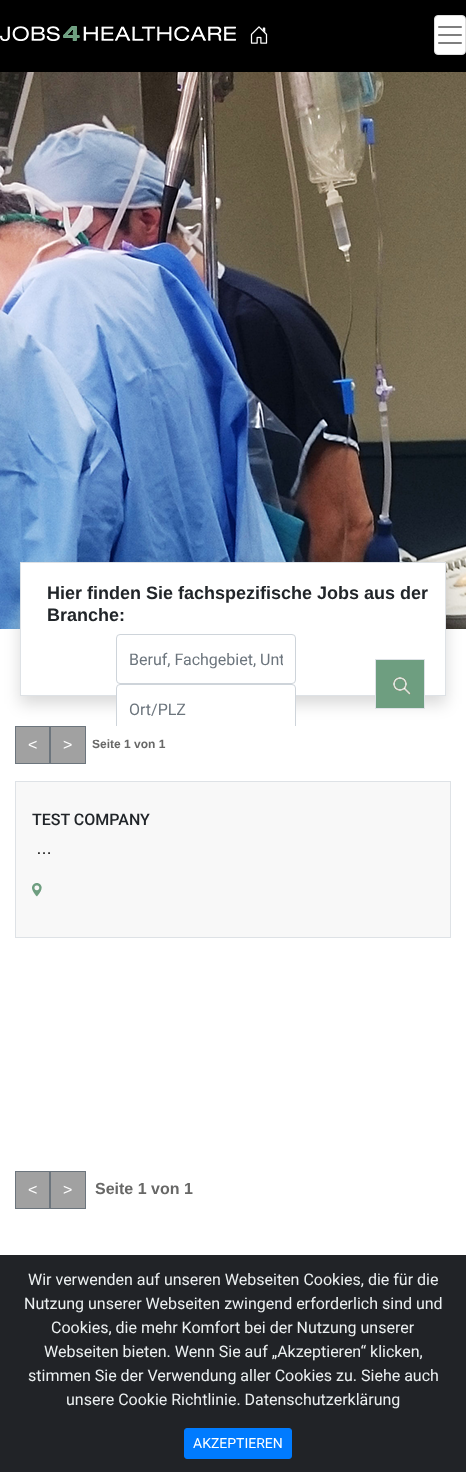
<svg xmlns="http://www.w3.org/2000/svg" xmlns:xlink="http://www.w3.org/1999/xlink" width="466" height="1472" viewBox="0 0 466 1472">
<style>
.cls-1{font:bold 18px Liberation Sans;fill:#212529}
.cls-2{font:16px Roboto;fill:#6c757d}
.cls-3{font:16px Liberation Sans;fill:#ffffff}
.cls-4{font:bold 12px Liberation Sans;fill:#686867}
.cls-5{font:500 16px Roboto;fill:#212529}
.cls-6{font:16px Liberation Sans;fill:#000000}
.cls-7{font:bold 16px Liberation Sans;fill:#686867}
.cls-8{font:16px Roboto;fill:#ecf0f1}
.cls-9{font:14px Roboto;fill:#ffffff}
</style>
<defs>
<clipPath id="clip1"><rect x="129" y="650" width="154" height="19"/></clipPath>
</defs>
<rect width="100%" height="100%" fill="#ffffff"/>
<rect fill="#000000" x="0" y="0" width="466" height="72"/>
<image xlink:href="image0.png" x="0" y="26" width="236" height="15"/>
<image xlink:href="image1.png" x="250" y="26" width="18" height="18"/>
<rect fill="#ffffff" stroke="#dddddd" x="434.5" y="15.5" width="31" height="39" rx="3.5"/>
<image xlink:href="image2.png" x="438" y="26" width="24" height="18"/>
<image xlink:href="image3.png" x="0" y="72" width="466" height="557"/>
<rect fill="#000000" fill-opacity="0.15" filter="blur(8px)" x="20" y="570" width="426" height="134"/>
<rect fill="#ffffff" stroke="#dee2e6" x="20.5" y="562.5" width="425" height="133"/>
<rect fill="none" stroke="#ced4da" x="116.5" y="634.5" width="179" height="49" rx="3.5"/>
<rect fill="#ffffff" stroke="#ced4da" x="116.5" y="684.5" width="179" height="49" rx="3.5"/>
<image xlink:href="image4.png" x="376" y="660" width="48" height="48"/>
<rect fill="none" stroke="#dee2e6" x="375.5" y="659.5" width="49" height="49"/>
<rect fill="#ffffff" x="116" y="726" width="180" height="8"/>
<rect fill="#a1a1a1" stroke="#6c757d" x="15.5" y="726.5" width="34" height="37"/>
<rect fill="#a1a1a1" stroke="#6c757d" x="50.5" y="726.5" width="35" height="37"/>
<rect fill="#f8f8f8" stroke="#dee2e6" x="15.5" y="781.5" width="435" height="156"/>
<image xlink:href="image5.png" x="32" y="883" width="10" height="14"/>
<rect fill="#a1a1a1" stroke="#6c757d" x="15.5" y="1171.5" width="34" height="37"/>
<rect fill="#a1a1a1" stroke="#6c757d" x="50.5" y="1171.5" width="35" height="37"/>
<rect fill="#212327" x="0" y="1255" width="466" height="217"/>
<rect fill="#007bff" stroke="#007bff" x="184.5" y="1428.5" width="107" height="30" rx="2.5"/>
<text class="cls-1"><tspan x="47" y="599">Hier finden Sie fachspezifische Jobs aus der</tspan><tspan x="47" y="621">Branche:</tspan></text>
<g clip-path="url(#clip1)">
<text class="cls-2" x="129" y="665">Beruf, Fachgebiet, Unt</text>
</g>
<text class="cls-2" x="129" y="715">Ort/PLZ</text>
<text class="cls-3" x="28" y="750">&lt;</text>
<text class="cls-3" x="63" y="750">&gt;</text>
<text class="cls-4" x="92" y="748">Seite 1 von 1</text>
<text class="cls-5" x="32" y="825">TEST COMPANY</text>
<text class="cls-6" x="36" y="854">…</text>
<text class="cls-3" x="28" y="1195">&lt;</text>
<text class="cls-3" x="63" y="1195">&gt;</text>
<text class="cls-7" x="95" y="1194">Seite 1 von 1</text>
<text class="cls-8" x="28" y="1285">Wir verwenden auf unseren Webseiten Cookies, die für die</text>
<text class="cls-8" x="24" y="1309">Nutzung unserer Webseiten zwingend erforderlich sind und</text>
<text class="cls-8" x="51" y="1333">Cookies, die mehr Komfort bei der Nutzung unserer</text>
<text class="cls-8" x="44" y="1357">Webseiten bieten. Wenn Sie auf „Akzeptieren“ klicken,</text>
<text class="cls-8" x="28" y="1381">stimmen Sie der Verwendung aller Cookies zu. Siehe auch</text>
<text class="cls-8" x="66" y="1405">unsere Cookie Richtlinie. Datenschutzerklärung</text>
<text class="cls-9" x="193" y="1448">AKZEPTIEREN</text>
</svg>
